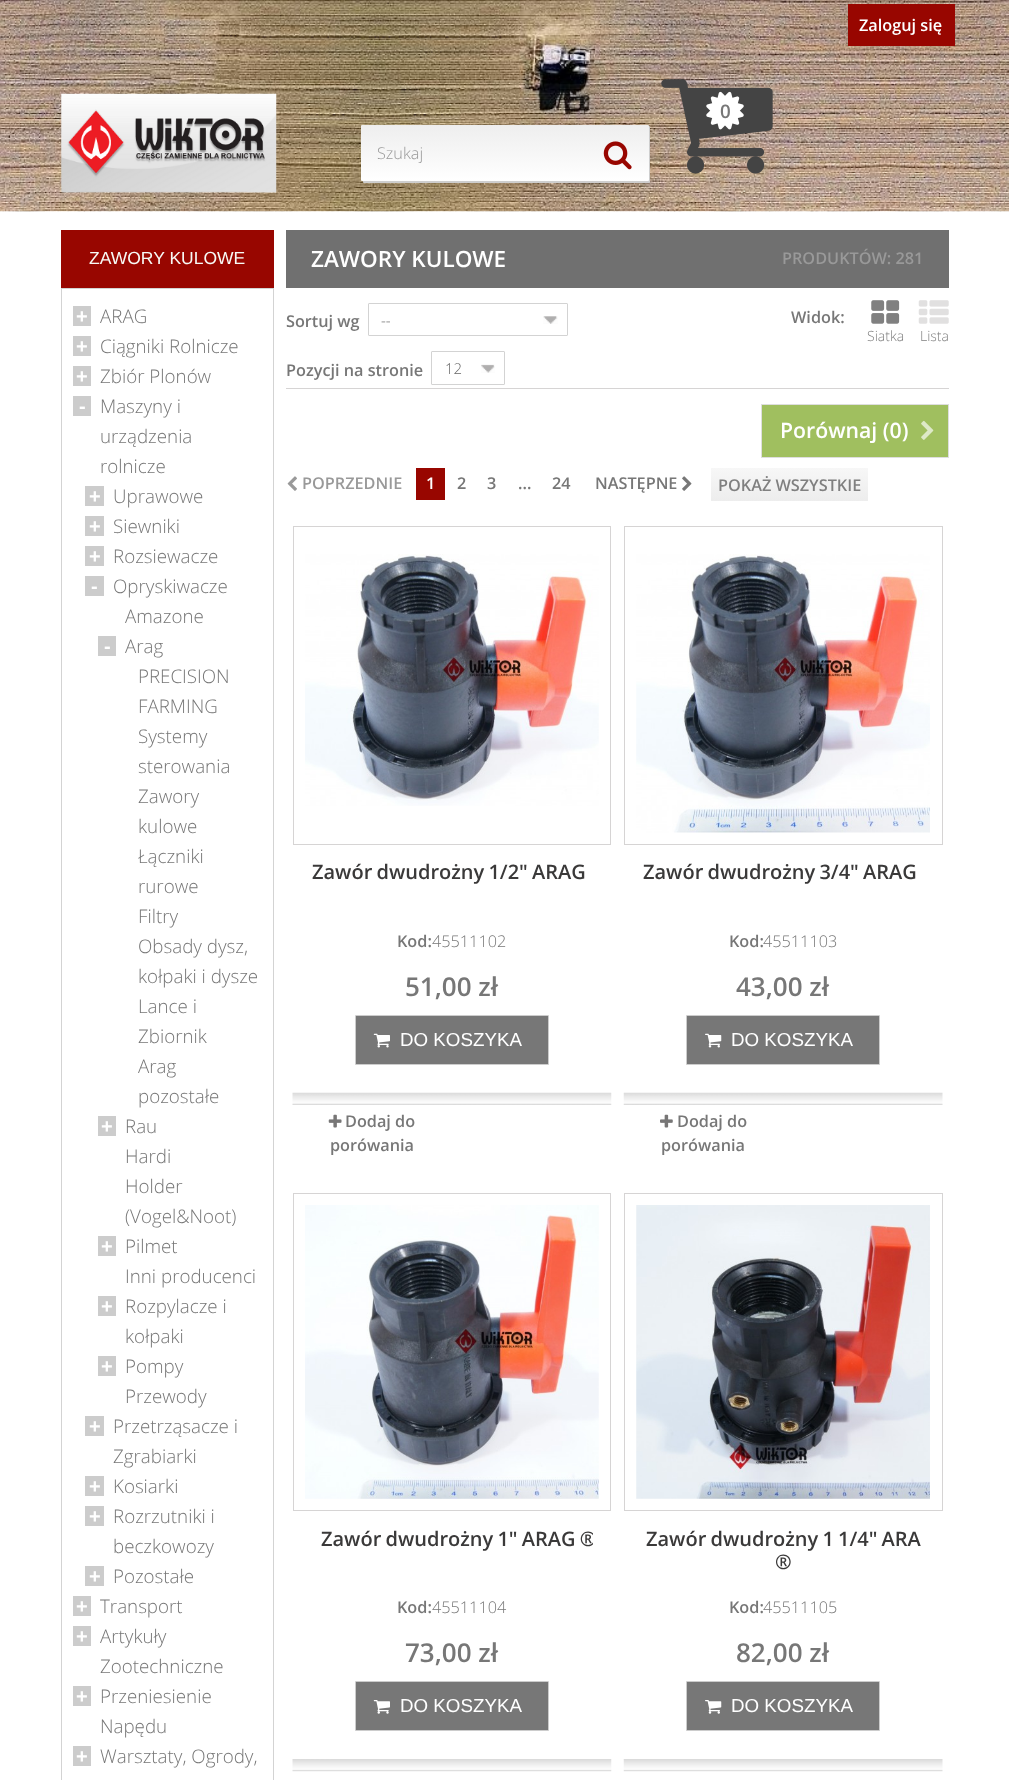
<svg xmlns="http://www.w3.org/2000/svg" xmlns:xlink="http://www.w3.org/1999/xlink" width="1009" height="1780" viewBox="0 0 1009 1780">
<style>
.cls-1{font:600 16.25px Open Sans;fill:#ffffff}
.cls-2{font:600 18.75px Open Sans;fill:#777777}
.cls-3{font:300 16.25px Open Sans;fill:#999999}
.cls-4{font:17.5px Liberation Sans;fill:#f8faf6}
.cls-5{font:bold 20px Liberation Sans;fill:#ffffff}
.cls-6{font:300 18.75px Open Sans;fill:#777777}
.cls-7{font:600 22.5px Open Sans;fill:#ffffff}
.cls-8{font:600 16.25px Open Sans;fill:#999999}
.cls-9{font:600 16.25px Open Sans;fill:#777777}
.cls-10{font:300 15px Open Sans;fill:#666666}
.cls-11{font:300 14px Open Sans;fill:#808080}
.cls-12{font:600 21.25px Open Sans;fill:#ffffff}
.cls-13{font:600 16.25px Open Sans;fill:#808080}
.cls-14{font:600 20px Open Sans;fill:#3a3939}
.cls-15{font:300 16.25px Open Sans;fill:#777777}
.cls-16{font:600 26px Open Sans;fill:#777777}
.cls-17{font:18.75px Liberation Sans;fill:#ffffff}
</style>
<defs>
<linearGradient id="g1" gradientUnits="userSpaceOnUse" x1="505" y1="181" x2="505" y2="125"><stop offset="0" stop-color="#ffffff"/><stop offset="1" stop-color="#eeeeee"/></linearGradient>
<linearGradient id="g2" gradientUnits="userSpaceOnUse" x1="789" y1="468" x2="789" y2="501"><stop offset="0" stop-color="#f7f7f7"/><stop offset="1" stop-color="#ededed"/></linearGradient>
<clipPath id="clip1"><rect x="311" y="1528" width="282" height="23"/></clipPath>
</defs>
<rect width="100%" height="100%" fill="#ffffff"/>
<image xlink:href="image0.png" x="0" y="0" width="1009" height="212"/>
<rect fill="#980600" x="848" y="4" width="107" height="42"/>
<image xlink:href="image1.png" x="61" y="93" width="216" height="100"/>
<image xlink:href="image2.png" x="661" y="79" width="112" height="95"/>
<image xlink:href="image3.png" x="706" y="91" width="38" height="39"/>
<rect fill="#cecece" filter="blur(0.5px)" x="363" y="126" width="287" height="57" rx="1"/>
<rect fill="url(#g1)" x="361" y="125" width="288" height="56" rx="1"/>
<image xlink:href="image4.png" x="603" y="141" width="29" height="29"/>
<rect fill="#980600" x="61" y="230" width="213" height="58"/>
<rect fill="none" stroke="#d3d3d3" x="61.5" y="288.5" width="212" height="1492"/>
<rect fill="#cccccc" x="73" y="306" width="18" height="20"/>
<rect fill="#cccccc" x="73" y="336" width="18" height="20"/>
<rect fill="#cccccc" x="73" y="366" width="18" height="20"/>
<rect fill="#cccccc" x="73" y="396" width="18" height="20"/>
<rect fill="#cccccc" x="85" y="486" width="19" height="20"/>
<rect fill="#cccccc" x="85" y="516" width="19" height="20"/>
<rect fill="#cccccc" x="85" y="546" width="19" height="20"/>
<rect fill="#cccccc" x="85" y="576" width="19" height="20"/>
<rect fill="#cccccc" x="98" y="636" width="18" height="20"/>
<rect fill="#cccccc" x="98" y="1116" width="18" height="20"/>
<rect fill="#cccccc" x="98" y="1236" width="18" height="20"/>
<rect fill="#cccccc" x="98" y="1296" width="18" height="20"/>
<rect fill="#cccccc" x="98" y="1356" width="18" height="20"/>
<rect fill="#cccccc" x="85" y="1416" width="19" height="20"/>
<rect fill="#cccccc" x="85" y="1476" width="19" height="20"/>
<rect fill="#cccccc" x="85" y="1506" width="19" height="20"/>
<rect fill="#cccccc" x="85" y="1566" width="19" height="20"/>
<rect fill="#cccccc" x="73" y="1596" width="18" height="20"/>
<rect fill="#cccccc" x="73" y="1626" width="18" height="20"/>
<rect fill="#cccccc" x="73" y="1686" width="18" height="20"/>
<rect fill="#cccccc" x="73" y="1746" width="18" height="20"/>
<rect fill="#707070" x="286" y="230" width="663" height="58"/>
<rect fill="#d6d4d4" x="286" y="388" width="663" height="1"/>
<rect fill="none" stroke="#d3d3d3" x="368.5" y="303.5" width="199" height="32" rx="0.5"/>
<image xlink:href="image5.png" x="543" y="316" width="15" height="8"/>
<image xlink:href="image6.png" x="871" y="300" width="29" height="24"/>
<image xlink:href="image7.png" x="918" y="300" width="31" height="24"/>
<rect fill="none" stroke="#d3d3d3" x="431.5" y="351.5" width="73" height="33" rx="0.5"/>
<image xlink:href="image8.png" x="481" y="364" width="14" height="9"/>
<rect fill="#a0bf5f" stroke="#dedede" x="761.5" y="404.5" width="187" height="53"/>
<image xlink:href="image9.png" x="921" y="420" width="13" height="20"/>
<image xlink:href="image10.png" x="287" y="476" width="10" height="15"/>
<rect fill="#980600" x="416" y="468" width="29" height="32"/>
<image xlink:href="image11.png" x="682" y="476" width="10" height="15"/>
<rect fill="url(#g2)" x="711" y="468" width="157" height="33"/>
<rect fill="none" stroke="#d6d4d4" x="293.5" y="526.5" width="317" height="318"/>
<image xlink:href="image12.png" x="305" y="554" width="294" height="252"/>
<rect fill="#777777" stroke="#cccccc" x="355.5" y="1015.5" width="193" height="49" rx="0.5"/>
<image xlink:href="image13.png" x="373" y="1033" width="17" height="15"/>
<image xlink:href="image14.png" x="292" y="1092" width="320" height="13"/>
<image xlink:href="image15.png" x="328" y="1114" width="14" height="14"/>
<rect fill="none" stroke="#d6d4d4" x="624.5" y="526.5" width="318" height="318"/>
<image xlink:href="image16.png" x="636" y="554" width="294" height="279"/>
<rect fill="#777777" stroke="#cccccc" x="686.5" y="1015.5" width="193" height="49" rx="0.5"/>
<image xlink:href="image17.png" x="705" y="1033" width="17" height="15"/>
<image xlink:href="image18.png" x="623" y="1092" width="320" height="13"/>
<image xlink:href="image19.png" x="660" y="1114" width="13" height="14"/>
<rect fill="none" stroke="#d6d4d4" x="293.5" y="1193.5" width="317" height="317"/>
<image xlink:href="image20.png" x="305" y="1205" width="294" height="294"/>
<rect fill="#777777" stroke="#cccccc" x="355.5" y="1681.5" width="193" height="49" rx="0.5"/>
<image xlink:href="image21.png" x="373" y="1700" width="17" height="14"/>
<image xlink:href="image22.png" x="292" y="1759" width="320" height="13"/>
<rect fill="none" stroke="#d6d4d4" x="624.5" y="1193.5" width="318" height="317"/>
<image xlink:href="image23.png" x="636" y="1205" width="294" height="294"/>
<rect fill="#777777" stroke="#cccccc" x="686.5" y="1681.5" width="193" height="49" rx="0.5"/>
<image xlink:href="image24.png" x="705" y="1700" width="17" height="14"/>
<image xlink:href="image25.png" x="623" y="1759" width="320" height="13"/>
<text class="cls-1" x="859" y="31">Zaloguj się</text>
<text class="cls-2" x="720" y="118">0</text>
<text class="cls-3" x="377" y="159">Szukaj</text>
<text class="cls-4" x="89" y="264">ZAWORY KULOWE</text>
<text class="cls-5" x="76" y="323">+</text>
<text class="cls-6" x="100" y="323">ARAG</text>
<text class="cls-5" x="76" y="353">+</text>
<text class="cls-6" x="100" y="353">Ciągniki Rolnicze</text>
<text class="cls-5" x="76" y="383">+</text>
<text class="cls-6" x="100" y="383">Zbiór Plonów</text>
<text class="cls-5" x="79" y="413">-</text>
<text class="cls-6"><tspan x="100" y="413">Maszyny i</tspan><tspan x="100" y="443">urządzenia</tspan><tspan x="100" y="473">rolnicze</tspan></text>
<text class="cls-5" x="89" y="503">+</text>
<text class="cls-6" x="113" y="503">Uprawowe</text>
<text class="cls-5" x="89" y="533">+</text>
<text class="cls-6" x="113" y="533">Siewniki</text>
<text class="cls-5" x="89" y="563">+</text>
<text class="cls-6" x="113" y="563">Rozsiewacze</text>
<text class="cls-5" x="91" y="593">-</text>
<text class="cls-6" x="113" y="593">Opryskiwacze</text>
<text class="cls-6" x="125" y="623">Amazone</text>
<text class="cls-5" x="104" y="653">-</text>
<text class="cls-6" x="125" y="653">Arag</text>
<text class="cls-6"><tspan x="138" y="683">PRECISION</tspan><tspan x="138" y="713">FARMING</tspan><tspan x="138" y="743">Systemy</tspan><tspan x="138" y="773">sterowania</tspan><tspan x="138" y="803">Zawory</tspan><tspan x="138" y="833">kulowe</tspan><tspan x="138" y="863">Łączniki</tspan><tspan x="138" y="893">rurowe</tspan><tspan x="138" y="923">Filtry</tspan><tspan x="138" y="953">Obsady dysz,</tspan><tspan x="138" y="983">kołpaki i dysze</tspan><tspan x="138" y="1013">Lance i</tspan><tspan x="138" y="1043">Zbiornik</tspan><tspan x="138" y="1073">Arag</tspan><tspan x="138" y="1103">pozostałe</tspan></text>
<text class="cls-5" x="101" y="1133">+</text>
<text class="cls-6"><tspan x="125" y="1133">Rau</tspan><tspan x="125" y="1163">Hardi</tspan><tspan x="125" y="1193">Holder</tspan><tspan x="125" y="1223">(Vogel&amp;Noot)</tspan></text>
<text class="cls-5" x="101" y="1253">+</text>
<text class="cls-6"><tspan x="125" y="1253">Pilmet</tspan><tspan x="125" y="1283">Inni producenci</tspan></text>
<text class="cls-5" x="101" y="1313">+</text>
<text class="cls-6"><tspan x="125" y="1313">Rozpylacze i</tspan><tspan x="125" y="1343">kołpaki</tspan></text>
<text class="cls-5" x="101" y="1373">+</text>
<text class="cls-6"><tspan x="125" y="1373">Pompy</tspan><tspan x="125" y="1403">Przewody</tspan></text>
<text class="cls-5" x="89" y="1433">+</text>
<text class="cls-6"><tspan x="113" y="1433">Przetrząsacze i</tspan><tspan x="113" y="1463">Zgrabiarki</tspan></text>
<text class="cls-5" x="89" y="1493">+</text>
<text class="cls-6" x="113" y="1493">Kosiarki</text>
<text class="cls-5" x="89" y="1523">+</text>
<text class="cls-6"><tspan x="113" y="1523">Rozrzutniki i</tspan><tspan x="113" y="1553">beczkowozy</tspan></text>
<text class="cls-5" x="89" y="1583">+</text>
<text class="cls-6" x="113" y="1583">Pozostałe</text>
<text class="cls-5" x="76" y="1613">+</text>
<text class="cls-6" x="100" y="1613">Transport</text>
<text class="cls-5" x="76" y="1643">+</text>
<text class="cls-6"><tspan x="100" y="1643">Artykuły</tspan><tspan x="100" y="1673">Zootechniczne</tspan></text>
<text class="cls-5" x="76" y="1703">+</text>
<text class="cls-6"><tspan x="100" y="1703">Przeniesienie</tspan><tspan x="100" y="1733">Napędu</tspan></text>
<text class="cls-5" x="76" y="1763">+</text>
<text class="cls-6" x="100" y="1763">Warsztaty, Ogrody,</text>
<text class="cls-7" x="311" y="267">ZAWORY KULOWE</text>
<text class="cls-8" x="782" y="264">PRODUKTÓW: 281</text>
<text class="cls-9" x="286" y="327">Sortuj wg</text>
<text class="cls-10" x="381" y="326">--</text>
<text class="cls-9" x="791" y="323">Widok:</text>
<text class="cls-11" x="867" y="341">Siatka</text>
<text class="cls-11" x="920" y="341">Lista</text>
<text class="cls-9" x="286" y="376">Pozycji na stronie</text>
<text class="cls-10" x="445" y="374">12</text>
<text class="cls-12" x="780" y="438">Porównaj (0)</text>
<text class="cls-8" x="302" y="489">POPRZEDNIE</text>
<text class="cls-1" x="426" y="489">1</text>
<text class="cls-9" x="457" y="489">2</text>
<text class="cls-9" x="487" y="489">3</text>
<text class="cls-9" x="518" y="489">...</text>
<text class="cls-9" x="552" y="489">24</text>
<text class="cls-9" x="595" y="489">NASTĘPNE</text>
<text class="cls-13" x="718" y="491">POKAŻ WSZYSTKIE</text>
<text class="cls-14" x="312" y="879" word-spacing="-1">Zawór dwudrożny 1/2" ARAG</text>
<text class="cls-9" x="397" y="947">Kod:</text>
<text class="cls-15" x="432" y="947">45511102</text>
<text class="cls-16" x="405" y="996">51,00 zł</text>
<text class="cls-17" x="400" y="1046">DO KOSZYKA</text>
<text class="cls-9" x="345" y="1127">Dodaj do</text>
<text class="cls-9" x="330" y="1151">porówania</text>
<text class="cls-14" x="643" y="879" word-spacing="-1">Zawór dwudrożny 3/4" ARAG</text>
<text class="cls-9" x="729" y="947">Kod:</text>
<text class="cls-15" x="763" y="947">45511103</text>
<text class="cls-16" x="736" y="996">43,00 zł</text>
<text class="cls-17" x="731" y="1046">DO KOSZYKA</text>
<text class="cls-9" x="677" y="1127">Dodaj do</text>
<text class="cls-9" x="661" y="1151">porówania</text>
<g clip-path="url(#clip1)">
<text class="cls-14" x="321" y="1546" word-spacing="-1">Zawór dwudrożny 1" ARAG ®</text>
</g>
<text class="cls-9" x="397" y="1613">Kod:</text>
<text class="cls-15" x="432" y="1613">45511104</text>
<text class="cls-16" x="405" y="1662">73,00 zł</text>
<text class="cls-17" x="400" y="1712">DO KOSZYKA</text>
<text class="cls-14" x="646" y="1546" word-spacing="-1">Zawór dwudrożny 1 1/4" ARA</text>
<text class="cls-14" x="775" y="1569">®</text>
<text class="cls-9" x="729" y="1613">Kod:</text>
<text class="cls-15" x="763" y="1613">45511105</text>
<text class="cls-16" x="736" y="1662">82,00 zł</text>
<text class="cls-17" x="731" y="1712">DO KOSZYKA</text>
</svg>
